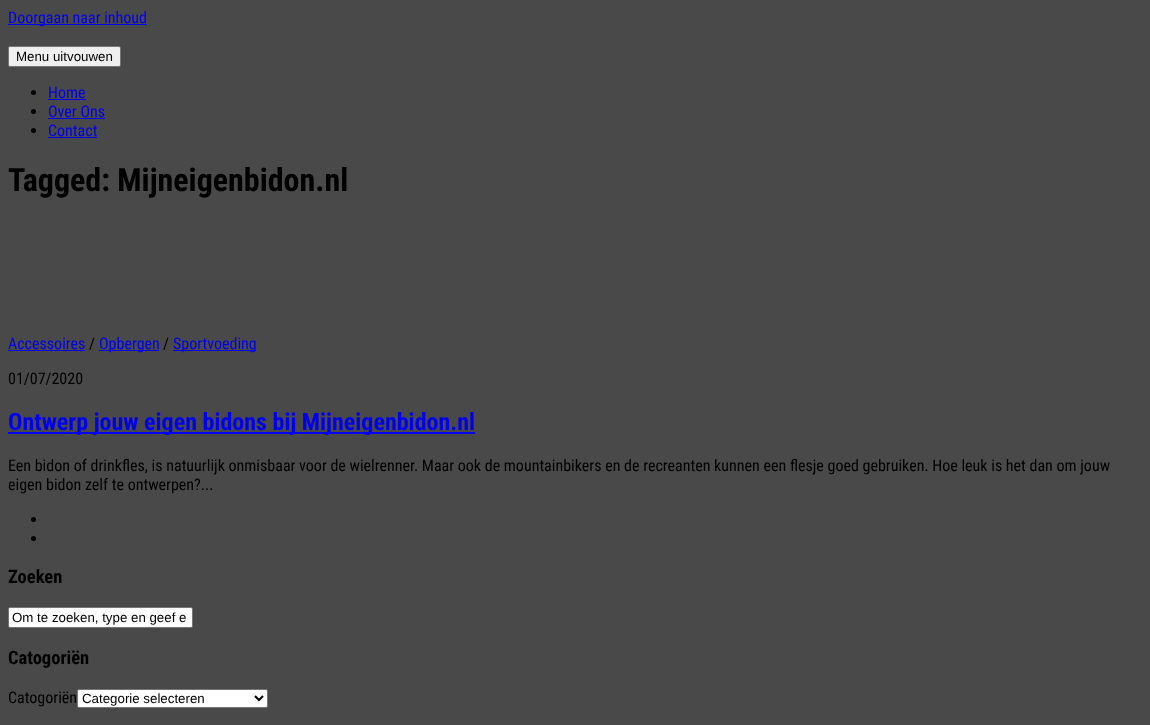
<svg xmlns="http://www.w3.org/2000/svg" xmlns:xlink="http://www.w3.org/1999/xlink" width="1150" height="725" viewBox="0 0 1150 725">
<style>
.cls-1{font:16px Roboto Condensed;fill:#0000ee}
.cls-2{font:13.3px Liberation Sans;fill:#000000}
.cls-3{font:bold 32px Roboto Condensed;fill:#000000}
.cls-4{font:16px Roboto Condensed;fill:#000000}
.cls-5{font:bold 24px Roboto Condensed;fill:#0000ee}
.cls-6{font:bold 18.5px Roboto Condensed;fill:#000000}
</style>
<rect width="100%" height="100%" fill="#494949"/>
<rect fill="#0000ee" x="8" y="24" width="139" height="1"/>
<rect fill="#efefef" stroke="#767676" x="8.5" y="46.5" width="112" height="20" rx="1.5"/>
<circle fill="#000000" cx="33.5" cy="92.5" r="2.5"/>
<rect fill="#0000ee" x="48" y="99" width="38" height="1"/>
<circle fill="#000000" cx="33.5" cy="111.5" r="2.5"/>
<rect fill="#0000ee" x="48" y="118" width="57" height="1"/>
<circle fill="#000000" cx="33.5" cy="130.5" r="2.5"/>
<rect fill="#0000ee" x="48" y="137" width="49" height="1"/>
<rect fill="#0000ee" x="8" y="350" width="77" height="1"/>
<rect fill="#0000ee" x="99" y="350" width="60" height="1"/>
<rect fill="#0000ee" x="173" y="350" width="83" height="1"/>
<rect fill="#0000ee" x="8" y="432" width="467" height="2"/>
<circle fill="#000000" cx="33.5" cy="519.5" r="2.5"/>
<circle fill="#000000" cx="33.5" cy="538.5" r="2.5"/>
<rect fill="#ffffff" stroke="#767676" x="8.5" y="607.5" width="184" height="20" rx="1.5"/>
<rect fill="#ffffff" stroke="#767676" x="77.5" y="689.5" width="190" height="18" rx="1.5"/>
<path fill="none" stroke="#000000" stroke-width="2" d="M255 696L259 700L263 696"/>
<text class="cls-1" x="8" y="23">Doorgaan naar inhoud</text>
<text class="cls-2" x="16" y="61">Menu uitvouwen</text>
<text class="cls-1"><tspan x="48" y="98">Home</tspan><tspan x="48" y="117">Over Ons</tspan><tspan x="48" y="136">Contact</tspan></text>
<text class="cls-3" x="8" y="191">Tagged: Mijneigenbidon.nl</text>
<text class="cls-1" x="8" y="349">Accessoires</text>
<text class="cls-4" x="89" y="349">/</text>
<text class="cls-1" x="99" y="349">Opbergen</text>
<text class="cls-4" x="163" y="349">/</text>
<text class="cls-1" x="173" y="349">Sportvoeding</text>
<text class="cls-4" x="8" y="384">01/07/2020</text>
<text class="cls-5" x="8" y="430">Ontwerp jouw eigen bidons bij Mijneigenbidon.nl</text>
<text class="cls-4"><tspan x="8" y="471">Een bidon of drinkfles, is natuurlijk onmisbaar voor de wielrenner. Maar ook de mountainbikers en de recreanten kunnen een flesje goed gebruiken. Hoe leuk is het dan om jouw</tspan><tspan x="8" y="490">eigen bidon zelf te ontwerpen?...</tspan></text>
<text class="cls-6" x="8" y="583">Zoeken</text>
<text class="cls-2" x="12" y="622">Om te zoeken, type en geef e</text>
<text class="cls-6" x="8" y="664">Catogoriën</text>
<text class="cls-4" x="8" y="703">Catogoriën</text>
<text class="cls-2" x="82" y="703">Categorie selecteren</text>
</svg>
